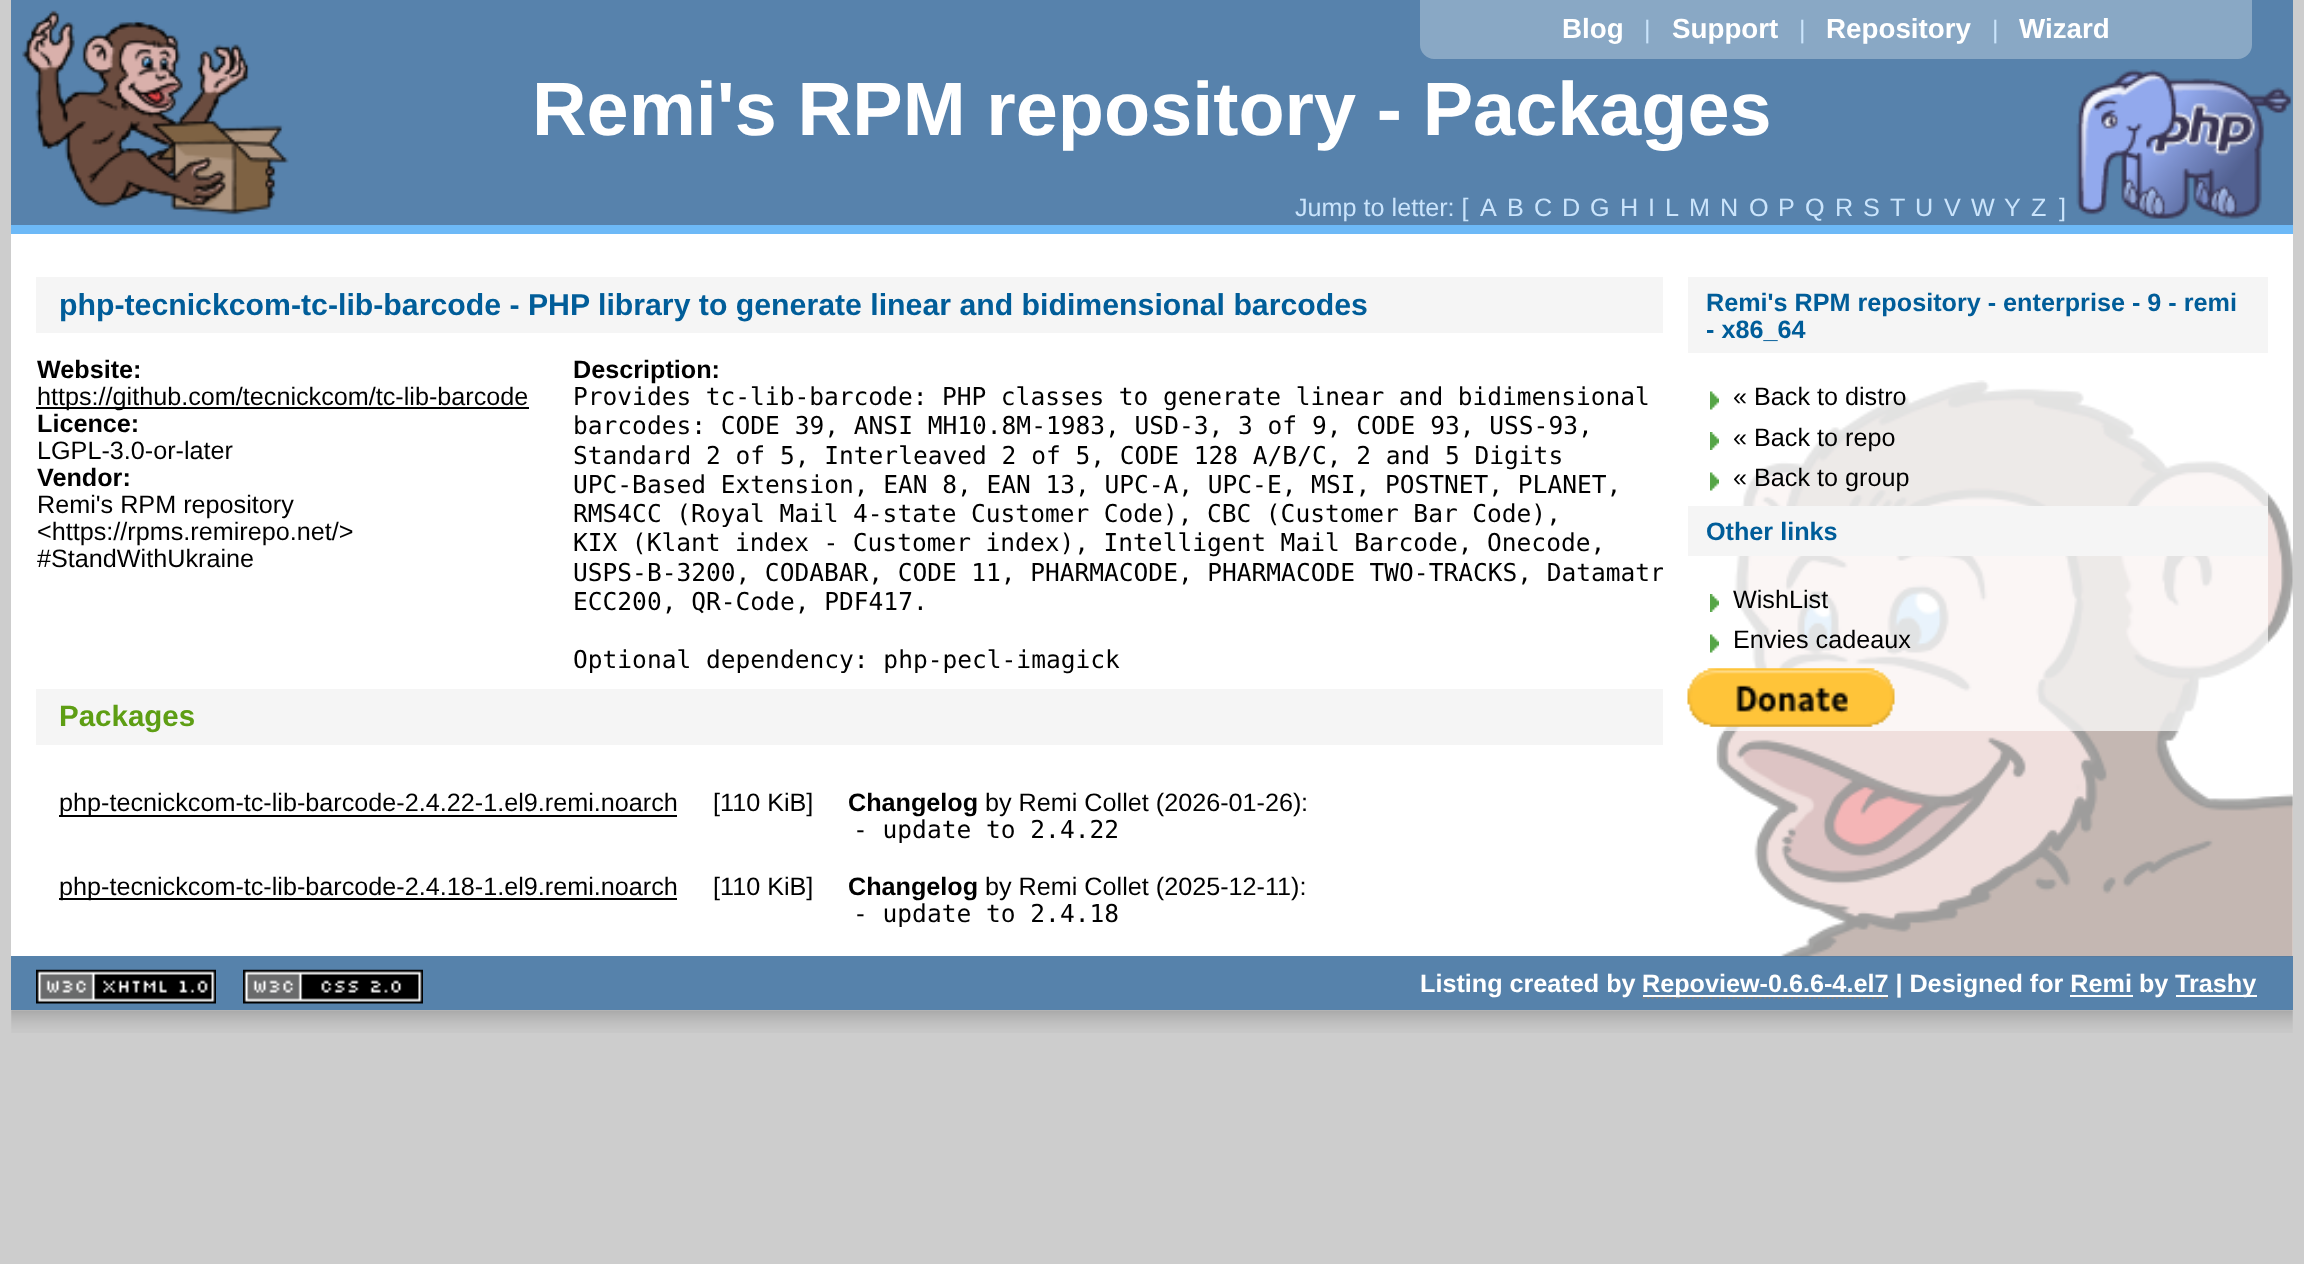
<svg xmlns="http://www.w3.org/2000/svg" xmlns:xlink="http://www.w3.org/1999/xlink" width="2304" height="1264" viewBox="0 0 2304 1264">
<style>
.cls-1{font:bold 27.75px Liberation Sans;fill:#ffffff}
.cls-2{font:25.2px Liberation Sans;fill:#cae4fc}
.cls-3{font:bold 75.6px Liberation Sans;fill:#ffffff}
.cls-4{font:bold 30.25px Liberation Sans;fill:#005d99}
.cls-5{font:bold 25.2px Liberation Sans;fill:#000000}
.cls-6{font:25.2px Liberation Sans;fill:#000000}
.cls-7{font:24.55px DejaVu Sans Mono;fill:#000000}
.cls-8{font:bold 29.5px Liberation Sans;fill:#5e9e14}
.cls-9{font:bold 25.2px Liberation Sans;fill:#005d99}
.cls-10{font:bold 25.2px Liberation Sans;fill:#ffffff}
</style>
<defs>
<clipPath id="clip1"><rect x="574" y="383" width="1089" height="292"/></clipPath>
</defs>
<rect width="100%" height="100%" fill="#cdcdcd"/>
<rect fill="#ffffff" x="11" y="234" width="2282" height="722"/>
<rect fill="#5682ab" x="11" y="956" width="2282" height="54"/>
<image xlink:href="image0.png" x="1716" y="380" width="577" height="577"/>
<rect fill="#5782ac" x="11" y="0" width="2282" height="225"/>
<path fill="#89a8c5" d="M1420 0H2252V45C2252 52.5 2245.5 59 2238 59H1434C1426.5 59 1420 52.5 1420 45Z"/>
<image xlink:href="image1.png" x="2076" y="69" width="216" height="150"/>
<rect fill="#6db9f7" x="11" y="225" width="2282" height="9"/>
<image xlink:href="image2.png" x="22" y="10" width="267" height="205"/>
<rect fill="#f5f5f5" x="36" y="277" width="1627" height="56"/>
<rect fill="#000000" x="36" y="407" width="493" height="2"/>
<rect fill="#f5f5f5" x="36" y="689" width="1627" height="56"/>
<rect fill="#000000" x="59" y="815" width="618" height="2"/>
<rect fill="#000000" x="59" y="898" width="618" height="2"/>
<rect fill="#ffffff" fill-opacity="0.7" x="1688" y="277" width="580" height="454" rx="14"/>
<rect fill="#f5f5f5" x="1688" y="277" width="580" height="76"/>
<image xlink:href="image3.png" x="1710" y="391" width="9" height="19"/>
<image xlink:href="image4.png" x="1710" y="432" width="9" height="18"/>
<image xlink:href="image3.png" x="1710" y="472" width="9" height="19"/>
<rect fill="#f5f5f5" x="1688" y="506" width="580" height="50"/>
<image xlink:href="image4.png" x="1710" y="594" width="9" height="18"/>
<image xlink:href="image3.png" x="1710" y="634" width="9" height="19"/>
<image xlink:href="image5.png" x="1687" y="668" width="208" height="59"/>
<image xlink:href="image6.png" x="11" y="1010" width="2282" height="23"/>
<image xlink:href="image7.png" x="36" y="969" width="180" height="35"/>
<image xlink:href="image8.png" x="243" y="969" width="180" height="35"/>
<path fill="none" stroke="#808080" stroke-width="2.2" stroke-dasharray="2.25 2.25" d="M1642.5 998H1888"/>
<rect fill="#ffffff" x="1643" y="995" width="245" height="2"/>
<rect fill="#ffffff" x="2176" y="995" width="81" height="2"/>
<rect fill="#ffffff" x="2070" y="995" width="63" height="2"/>
<text class="cls-1" x="1562" y="38">Blog</text>
<text class="cls-2" x="1644" y="38">|</text>
<text class="cls-1" x="1672" y="38">Support</text>
<text class="cls-2" x="1799" y="38">|</text>
<text class="cls-1" x="1826" y="38">Repository</text>
<text class="cls-2" x="1992" y="38">|</text>
<text class="cls-1" x="2019" y="38">Wizard</text>
<text class="cls-3" x="532" y="135" word-spacing="-0.25">Remi's RPM repository - Packages</text>
<text class="cls-2" x="1295" y="216">Jump to letter: [</text>
<text class="cls-2" x="1480" y="216">A</text>
<text class="cls-2" x="1507" y="216">B</text>
<text class="cls-2" x="1534" y="216">C</text>
<text class="cls-2" x="1562" y="216">D</text>
<text class="cls-2" x="1590" y="216">G</text>
<text class="cls-2" x="1620" y="216">H</text>
<text class="cls-2" x="1648" y="216">I</text>
<text class="cls-2" x="1665" y="216">L</text>
<text class="cls-2" x="1689" y="216">M</text>
<text class="cls-2" x="1720" y="216">N</text>
<text class="cls-2" x="1749" y="216">O</text>
<text class="cls-2" x="1778" y="216">P</text>
<text class="cls-2" x="1805" y="216">Q</text>
<text class="cls-2" x="1835" y="216">R</text>
<text class="cls-2" x="1863" y="216">S</text>
<text class="cls-2" x="1890" y="216">T</text>
<text class="cls-2" x="1915" y="216">U</text>
<text class="cls-2" x="1944" y="216">V</text>
<text class="cls-2" x="1971" y="216">W</text>
<text class="cls-2" x="2004" y="216">Y</text>
<text class="cls-2" x="2031" y="216">Z</text>
<text class="cls-2" x="2059" y="216">]</text>
<text class="cls-4" x="59" y="315">php-tecnickcom-tc-lib-barcode - PHP library to generate linear and bidimensional barcodes</text>
<text class="cls-5" x="37" y="378">Website:</text>
<text class="cls-6" x="37" y="405">https://github.com/tecnickcom/tc-lib-barcode</text>
<text class="cls-5" x="37" y="432">Licence:</text>
<text class="cls-6" x="37" y="459">LGPL-3.0-or-later</text>
<text class="cls-5" x="37" y="486">Vendor:</text>
<text class="cls-6"><tspan x="37" y="513">Remi's RPM repository</tspan><tspan x="37" y="540">&lt;https://rpms.remirepo.net/&gt;</tspan><tspan x="37" y="567">#StandWithUkraine</tspan></text>
<text class="cls-5" x="573" y="378">Description:</text>
<text class="cls-7"><tspan x="573" y="405" word-spacing="-0.25">Provides tc-lib-barcode: PHP classes to generate linear and bidimensional</tspan><tspan x="573" y="434">barcodes: CODE 39, ANSI MH10.8M-1983, USD-3, 3 of 9, CODE 93, USS-93,</tspan><tspan x="573" y="464">Standard 2 of 5, Interleaved 2 of 5, CODE 128 A/B/C, 2 and 5 Digits</tspan><tspan x="573" y="493" word-spacing="-0.1">UPC-Based Extension, EAN 8, EAN 13, UPC-A, UPC-E, MSI, POSTNET, PLANET,</tspan><tspan x="573" y="522" word-spacing="-0.25">RMS4CC (Royal Mail 4-state Customer Code), CBC (Customer Bar Code),</tspan><tspan x="573" y="551" word-spacing="-0.25">KIX (Klant index - Customer index), Intelligent Mail Barcode, Onecode,</tspan></text>
<g clip-path="url(#clip1)">
<text class="cls-7" x="573" y="581" word-spacing="-0.25">USPS-B-3200, CODABAR, CODE 11, PHARMACODE, PHARMACODE TWO-TRACKS, Datamatr</text>
</g>
<text class="cls-7" x="573" y="610">ECC200, QR-Code, PDF417.</text>
<text class="cls-7" x="573" y="668">Optional dependency: php-pecl-imagick</text>
<text class="cls-8" x="59" y="726">Packages</text>
<text class="cls-6" x="59" y="811">php-tecnickcom-tc-lib-barcode-2.4.22-1.el9.remi.noarch</text>
<text class="cls-6" x="713" y="811">[110 KiB]</text>
<text class="cls-5" x="848" y="811">Changelog</text>
<text class="cls-6" x="985" y="811">by Remi Collet (2026-01-26)</text>
<text class="cls-6" x="1301" y="811">:</text>
<text class="cls-7" x="853" y="838">- update to 2.4.22</text>
<text class="cls-6" x="59" y="895">php-tecnickcom-tc-lib-barcode-2.4.18-1.el9.remi.noarch</text>
<text class="cls-6" x="713" y="895">[110 KiB]</text>
<text class="cls-5" x="848" y="895">Changelog</text>
<text class="cls-6" x="985" y="895">by Remi Collet (2025-12-11):</text>
<text class="cls-7" x="853" y="922">- update to 2.4.18</text>
<text class="cls-9"><tspan x="1706" y="311">Remi's RPM repository - enterprise - 9 - remi</tspan><tspan x="1706" y="338">- x86_64</tspan></text>
<text class="cls-6"><tspan x="1733" y="405">« Back to distro</tspan><tspan x="1733" y="446">« Back to repo</tspan><tspan x="1733" y="486">« Back to group</tspan></text>
<text class="cls-9" x="1706" y="540">Other links</text>
<text class="cls-6"><tspan x="1733" y="608">WishList</tspan><tspan x="1733" y="648">Envies cadeaux</tspan></text>
<text class="cls-10" x="1420" y="992">Listing created by</text>
<text class="cls-10" x="1642" y="992">Repoview-0.6.6-4.el7 | Designed for Remi by</text>
<text class="cls-10" x="2175" y="992">Trashy</text>
</svg>
